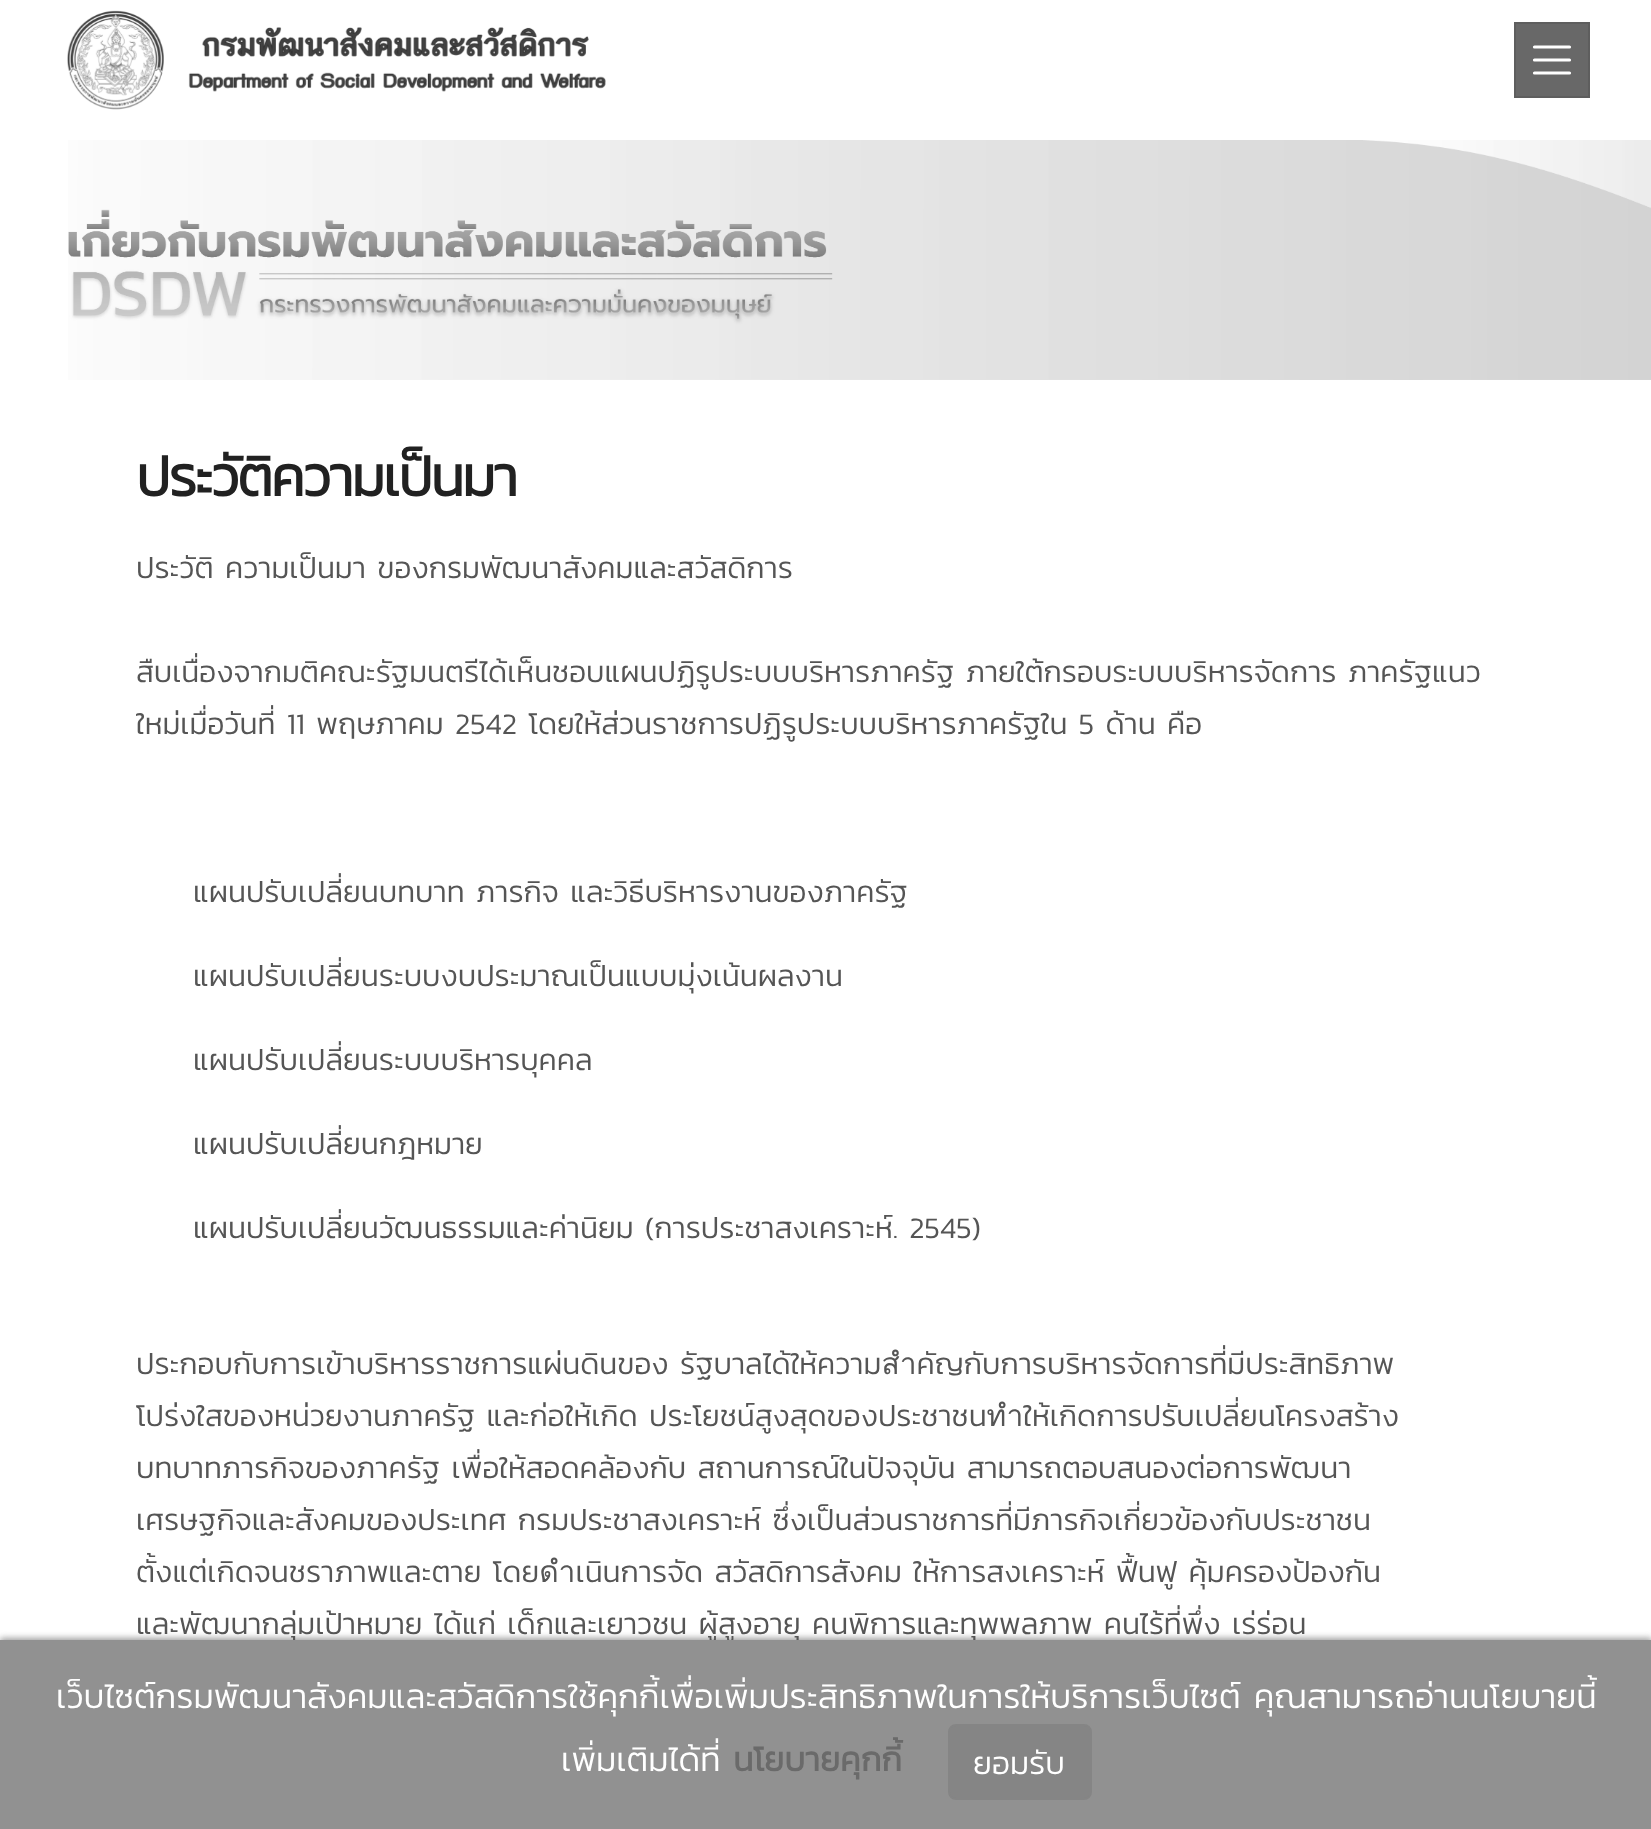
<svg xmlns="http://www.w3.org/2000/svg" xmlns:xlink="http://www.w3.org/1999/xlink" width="1651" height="1829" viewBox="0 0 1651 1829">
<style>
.cls-1{font:bold 56px Kanit;letter-spacing:-2px;fill:#212121}
.cls-2{font:300 30px Kanit;fill:#555555}
.cls-3{font:300 34px Kanit;fill:#ffffff}
.cls-4{font:bold 34px Kanit;fill:#6a6a6a}
.cls-5{font:300 32px Kanit;fill:#ffffff}
</style>
<rect width="100%" height="100%" fill="#ffffff"/>
<image xlink:href="image0.png" x="67" y="10" width="539" height="100"/>
<rect fill="#686868" stroke="#5e5e5e" stroke-width="2" x="1515" y="23" width="74" height="74"/>
<path fill="none" stroke="#ffffff" stroke-width="3.2" stroke-linecap="round" d="M1534.5 47H1569.5M1534.5 60H1569.5M1534.5 73H1569.5"/>
<image xlink:href="image1.png" x="68" y="140" width="1583" height="240"/>
<rect fill="#9f9f9f" filter="blur(3px)" x="0" y="1638" width="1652" height="190"/>
<text class="cls-1" x="136" y="496">ประวัติความเป็นมา</text>
<text class="cls-2" x="136" y="578">ประวัติ ความเป็นมา ของกรมพัฒนาสังคมและสวัสดิการ</text>
<text class="cls-2"><tspan x="136" y="682">สืบเนื่องจากมติคณะรัฐมนตรีได้เห็นชอบแผนปฏิรูประบบบริหารภาครัฐ ภายใต้กรอบระบบบริหารจัดการ ภาครัฐแนว</tspan><tspan x="136" y="734">ใหม่เมื่อวันที่ 11 พฤษภาคม 2542 โดยให้ส่วนราชการปฏิรูประบบบริหารภาครัฐใน 5 ด้าน คือ</tspan></text>
<text class="cls-2" x="193" y="902">แผนปรับเปลี่ยนบทบาท ภารกิจ และวิธีบริหารงานของภาครัฐ</text>
<text class="cls-2" x="193" y="986">แผนปรับเปลี่ยนระบบงบประมาณเป็นแบบมุ่งเน้นผลงาน</text>
<text class="cls-2" x="193" y="1070">แผนปรับเปลี่ยนระบบบริหารบุคคล</text>
<text class="cls-2" x="193" y="1154">แผนปรับเปลี่ยนกฎหมาย</text>
<text class="cls-2" x="193" y="1238">แผนปรับเปลี่ยนวัฒนธรรมและค่านิยม (การประชาสงเคราะห์. 2545)</text>
<text class="cls-2"><tspan x="136" y="1374">ประกอบกับการเข้าบริหารราชการแผ่นดินของ รัฐบาลได้ให้ความสำคัญกับการบริหารจัดการที่มีประสิทธิภาพ</tspan><tspan x="136" y="1426">โปร่งใสของหน่วยงานภาครัฐ และก่อให้เกิด ประโยชน์สูงสุดของประชาชนทำให้เกิดการปรับเปลี่ยนโครงสร้าง</tspan><tspan x="136" y="1478">บทบาทภารกิจของภาครัฐ เพื่อให้สอดคล้องกับ สถานการณ์ในปัจจุบัน สามารถตอบสนองต่อการพัฒนา</tspan><tspan x="136" y="1530">เศรษฐกิจและสังคมของประเทศ กรมประชาสงเคราะห์ ซึ่งเป็นส่วนราชการที่มีภารกิจเกี่ยวข้องกับประชาชน</tspan><tspan x="136" y="1582">ตั้งแต่เกิดจนชราภาพและตาย โดยดำเนินการจัด สวัสดิการสังคม ให้การสงเคราะห์ ฟื้นฟู คุ้มครองป้องกัน</tspan><tspan x="136" y="1634">และพัฒนากลุ่มเป้าหมาย ได้แก่ เด็กและเยาวชน ผู้สูงอายุ คนพิการและทุพพลภาพ คนไร้ที่พึ่ง เร่ร่อน</tspan></text>
<rect fill="#919191" x="0" y="1640" width="1651" height="189"/>
<text class="cls-3" x="56" y="1708">เว็บไซต์กรมพัฒนาสังคมและสวัสดิการใช้คุกกี้เพื่อเพิ่มประสิทธิภาพในการให้บริการเว็บไซต์ คุณสามารถอ่านนโยบายนี้</text>
<text class="cls-3" x="561" y="1771">เพิ่มเติมได้ที่</text>
<text class="cls-4" x="733" y="1771">นโยบายคุกกี้</text>
<rect fill="#858585" stroke="#858585" stroke-width="2" x="949" y="1725" width="142" height="74" rx="7"/>
<text class="cls-5" x="973" y="1774">ยอมรับ</text>
</svg>
